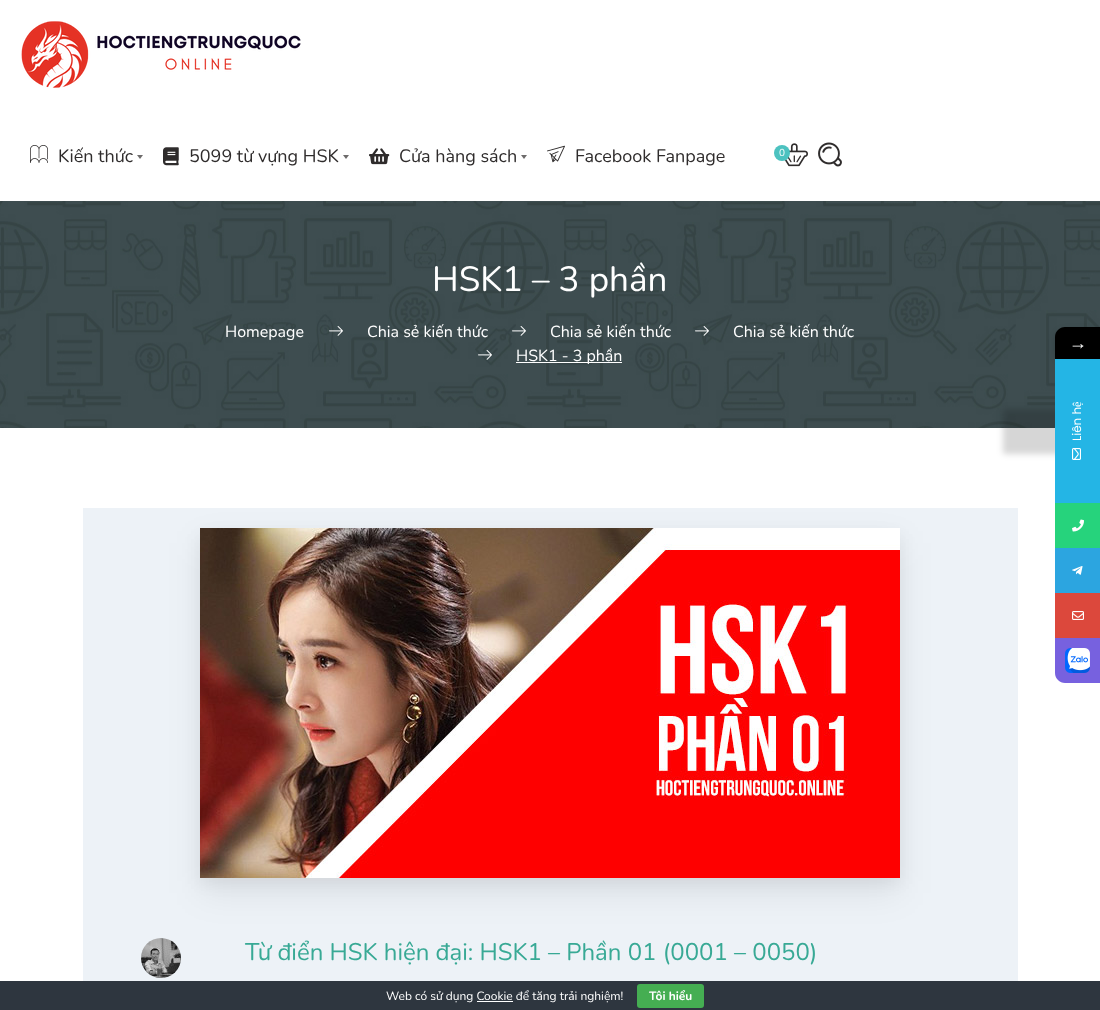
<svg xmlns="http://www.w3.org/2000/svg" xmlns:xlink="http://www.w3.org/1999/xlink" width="1100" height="1010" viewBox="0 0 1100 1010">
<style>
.cls-1{font:18px Nunito;fill:#2f2c2c}
.cls-2{font:10px Nunito;fill:#ffffff}
.cls-3{font:35px Nunito;fill:#ffffff}
.cls-4{font:16px Nunito;fill:#ffffff}
.cls-5{font:24px Nunito;fill:#38a995}
.cls-6{font:18px Liberation Serif;fill:#ffffff}
.cls-7{font:12px Liberation Serif;fill:#ffffff}
.cls-8{font:12px Poppins;fill:#ffffff}
.cls-9{font:12px Nunito;fill:#ffffff}
.cls-10{font:bold 12px Nunito;fill:#ffffff}
</style>
<rect width="100%" height="100%" fill="#ffffff"/>
<image xlink:href="image0.png" x="21" y="21" width="280" height="67"/>
<image xlink:href="image1.png" x="30" y="145" width="18" height="18"/>
<path fill="#6d6b6b" d="M137 155H143L140 159Z"/>
<image xlink:href="image2.png" x="163" y="147" width="16" height="19"/>
<path fill="#6d6b6b" d="M343 155H349L346 159Z"/>
<image xlink:href="image3.png" x="369" y="148" width="21" height="17"/>
<path fill="#6d6b6b" d="M521 155H527L524 159Z"/>
<image xlink:href="image4.png" x="547" y="145" width="18" height="18"/>
<image xlink:href="image5.png" x="784" y="143" width="24" height="24"/>
<circle fill="#4cc2c0" cx="782" cy="153" r="8"/>
<image xlink:href="image6.png" x="818" y="142" width="24" height="25"/>
<image xlink:href="image7.png" x="0" y="201" width="1100" height="227"/>
<image xlink:href="image8.png" x="329" y="326" width="14" height="10"/>
<image xlink:href="image9.png" x="512" y="326" width="14" height="10"/>
<image xlink:href="image10.png" x="695" y="326" width="14" height="10"/>
<image xlink:href="image11.png" x="478" y="350" width="14" height="10"/>
<rect fill="#ffffff" x="516" y="362" width="106" height="1"/>
<rect fill="#edf2f7" x="83" y="508" width="935" height="473"/>
<image xlink:href="image13.png" x="141" y="938" width="40" height="40"/>
<rect fill="#000000" fill-opacity="0.07" filter="blur(17.5px)" x="200" y="543" width="700" height="350"/>
<rect fill="#000000" fill-opacity="0.05" filter="blur(7.5px)" x="200" y="534" width="700" height="350"/>
<image xlink:href="image12.png" x="200" y="528" width="700" height="350"/>
<rect fill="#000000" fill-opacity="0.16" filter="blur(3px)" x="1055" y="330" width="45" height="32" rx="10"/>
<path fill="#000000" d="M1065 327H1100V359H1055V337C1055 331.5 1059.5 327 1065 327Z"/>
<rect fill="#000000" fill-opacity="0.16" filter="blur(3px)" x="1003" y="409" width="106" height="45"/>
<rect fill="#24b5e5" x="1055" y="359" width="45" height="144"/>
<image xlink:href="image14.png" x="1072" y="448" width="9" height="12"/>
<rect fill="#26d37c" x="1055" y="503" width="45" height="45"/>
<image xlink:href="image15.png" x="1072" y="519" width="12" height="13"/>
<rect fill="#2ca5e0" x="1055" y="548" width="45" height="45"/>
<image xlink:href="image16.png" x="1072" y="566" width="11" height="9"/>
<rect fill="#dc483c" x="1055" y="593" width="45" height="45"/>
<image xlink:href="image17.png" x="1072" y="611" width="12" height="9"/>
<path fill="#7761df" d="M1055 638H1100V683H1065C1059.5 683 1055 678.5 1055 673Z"/>
<image xlink:href="image18.png" x="1065" y="648" width="25" height="25"/>
<rect fill="#2e363f" x="0" y="981" width="1100" height="29"/>
<rect fill="#45ae52" x="637" y="984" width="67" height="24" rx="3"/>
<rect fill="#ffffff" x="477" y="1001" width="36" height="1"/>
<text class="cls-1" x="58" y="162">Kiến thức</text>
<text class="cls-1" x="189" y="162">5099 từ vựng HSK</text>
<text class="cls-1" x="399" y="162">Cửa hàng sách</text>
<text class="cls-1" x="575" y="162">Facebook Fanpage</text>
<text class="cls-2" x="779" y="156">0</text>
<text class="cls-3" x="432" y="291">HSK1 – 3 phần</text>
<text class="cls-4" x="225" y="337">Homepage</text>
<text class="cls-4" x="367" y="337">Chia sẻ kiến thức</text>
<text class="cls-4" x="550" y="337">Chia sẻ kiến thức</text>
<text class="cls-4" x="733" y="337">Chia sẻ kiến thức</text>
<text class="cls-4" x="516" y="361">HSK1 - 3 phần</text>
<text class="cls-5" x="245" y="960">Từ điển HSK hiện đại: HSK1 – Phần 01 (0001 – 0050)</text>
<text class="cls-6" x="1069" y="349">→</text>
<text class="cls-7" x="1081" y="407" transform="rotate(-90 1081 407)">ệ</text>
<text class="cls-8" x="1081" y="441" transform="rotate(-90 1081 441)">Liên h</text>
<text class="cls-9" x="386" y="1000">Web có sử dụng Cookie để tăng trải nghiệm!</text>
<text class="cls-10" x="649" y="1000">Tôi hiểu</text>
</svg>
